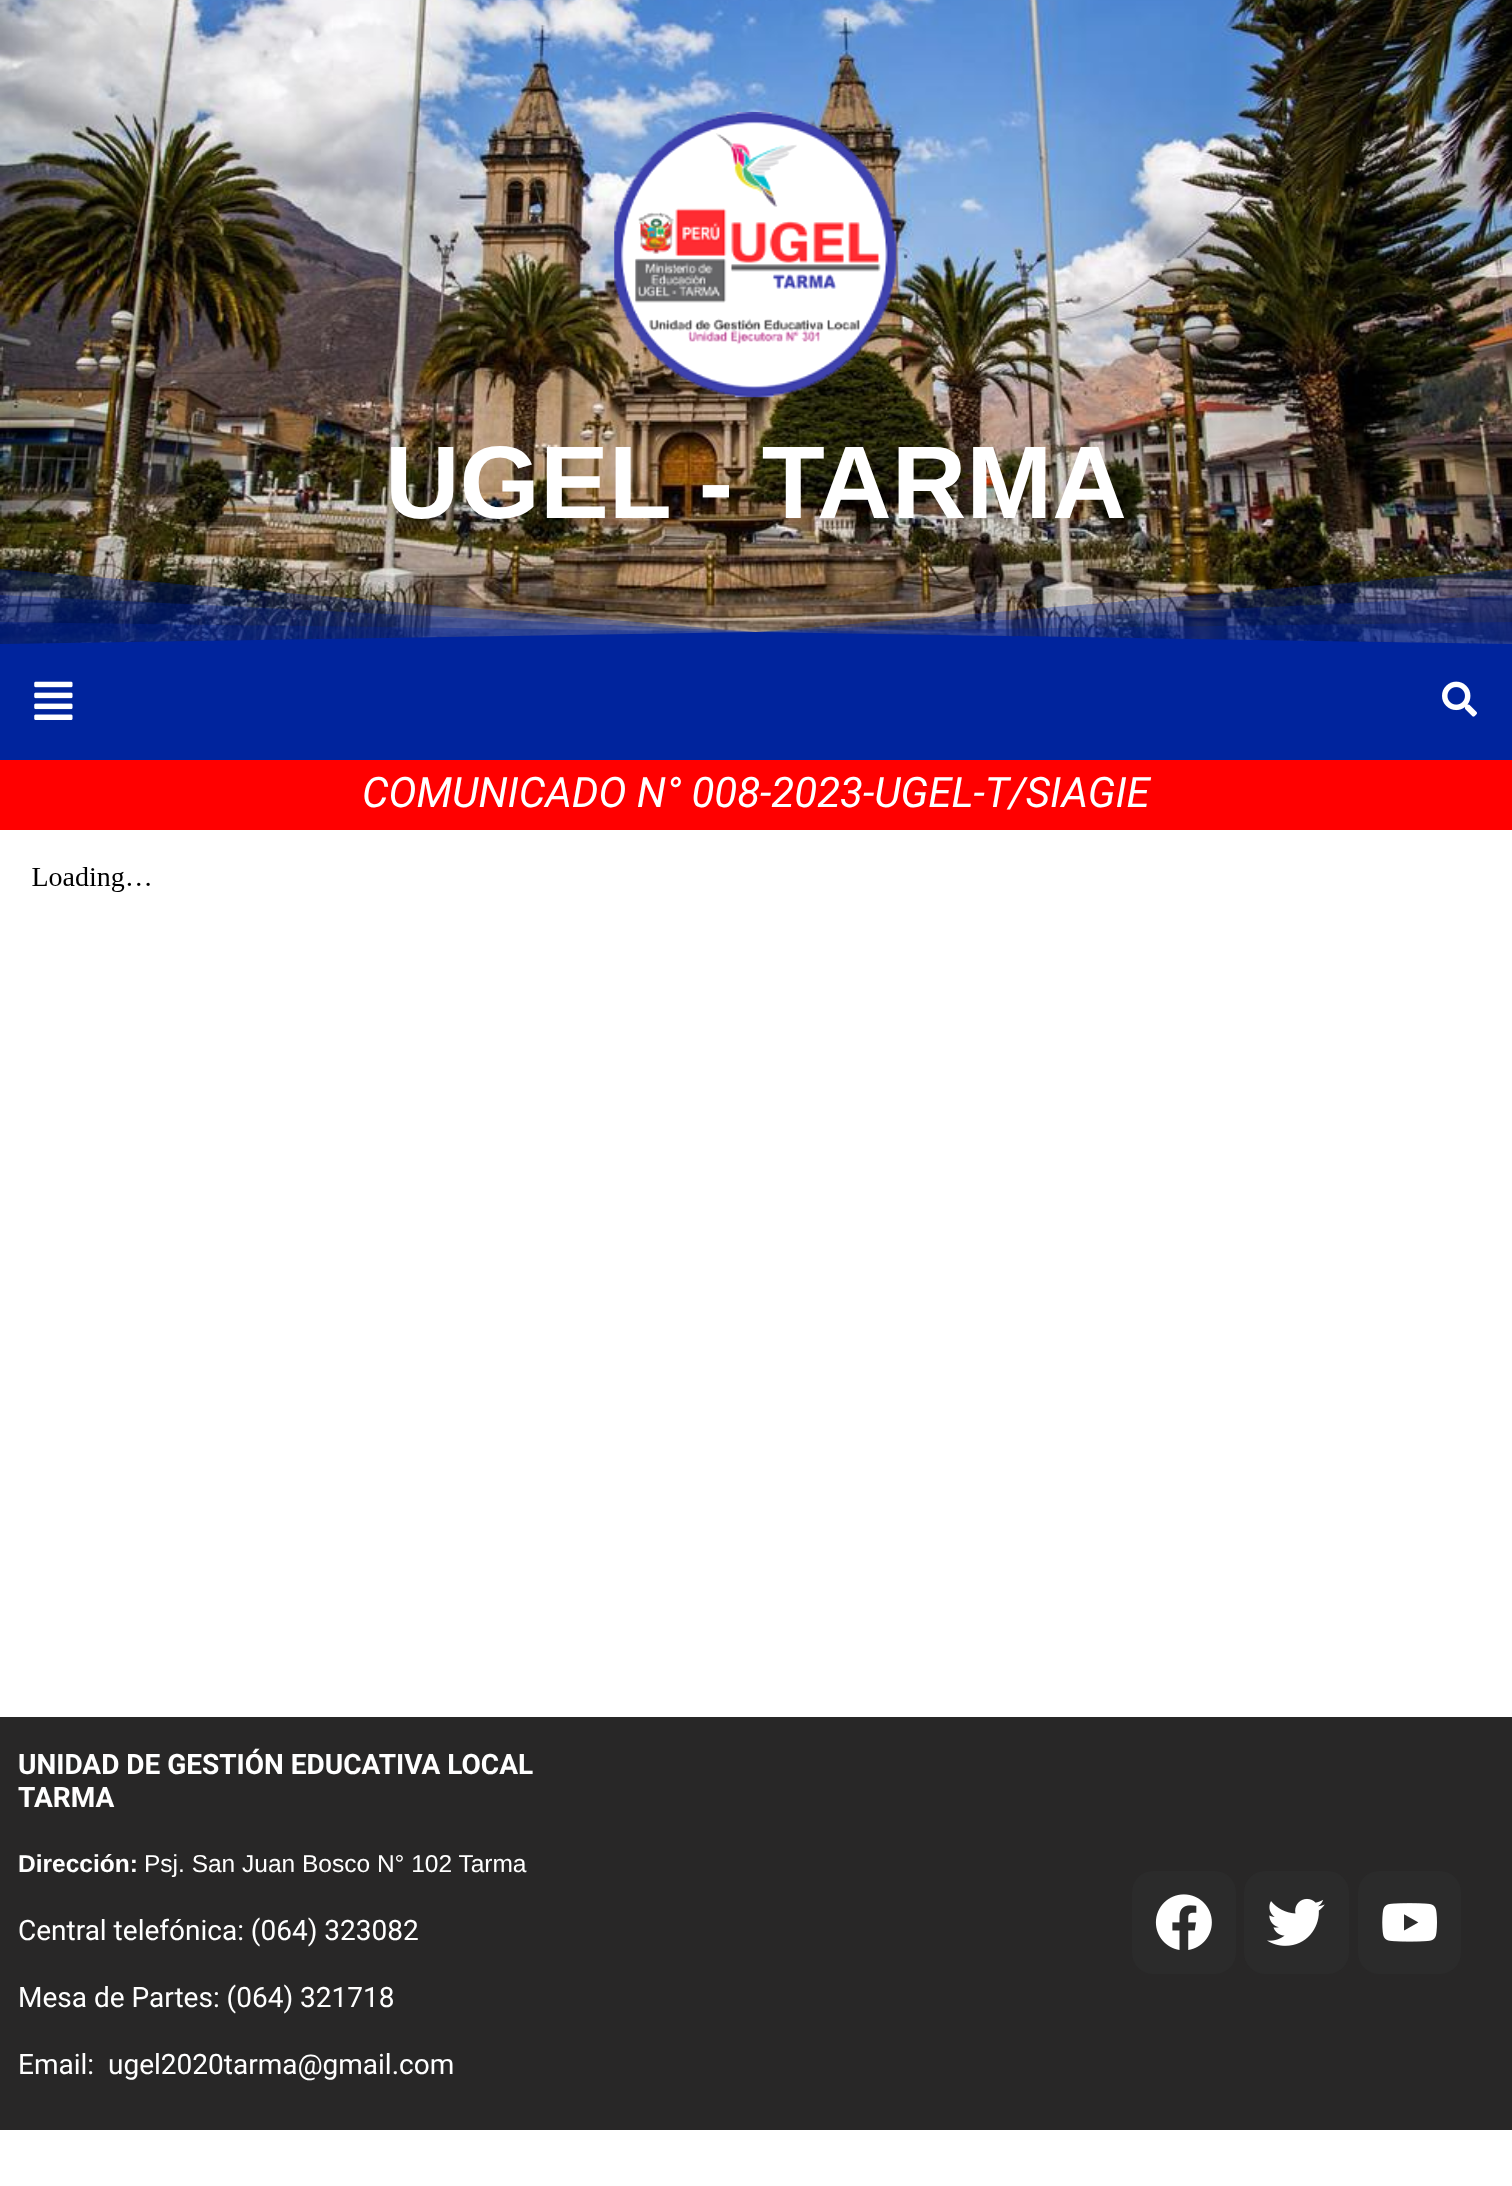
<svg xmlns="http://www.w3.org/2000/svg" xmlns:xlink="http://www.w3.org/1999/xlink" width="1512" height="2186" viewBox="0 0 1512 2186">
<style>
.cls-1{font:bold 103.25px Liberation Sans;fill:#ffffff}
.cls-2{font:italic 42px Roboto;fill:#ffffff}
.cls-3{font:bold 28px Roboto;fill:#ffffff}
.cls-4{font:bold 24.5px Liberation Sans;fill:#ffffff}
.cls-5{font:24.5px Liberation Sans;fill:#ffffff}
.cls-6{font:28px Roboto;fill:#ffffff}
</style>
<rect width="100%" height="100%" fill="#ffffff"/>
<image xlink:href="image0.png" x="0" y="0" width="1512" height="644"/>
<image xlink:href="image1.png" x="614" y="112" width="283" height="286"/>
<path fill="#00249d" fill-opacity="0.33" d="M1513 649V569L756 632L-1 569V649Z"/>
<path fill="#00249d" fill-opacity="0.33" d="M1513 649V595L756 632L-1 595V649Z"/>
<path fill="#00249d" fill-opacity="0.33" d="M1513 649V622L756 632L-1 622V649Z"/>
<path fill="#00249d" d="M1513 649V644L756 632L-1 644V649Z"/>
<rect fill="#00249d" x="0" y="649" width="1512" height="111"/>
<image xlink:href="image2.png" x="34" y="681" width="39" height="39"/>
<image xlink:href="image3.png" x="1442" y="681" width="35" height="36"/>
<rect fill="#ff0000" x="0" y="760" width="1512" height="70"/>
<image xlink:href="image4.png" x="32" y="867" width="118" height="25"/>
<rect fill="#282727" x="0" y="1717" width="1512" height="413"/>
<rect fill="#2b2b2b" x="1132" y="1871" width="104" height="103" rx="21"/>
<image xlink:href="image5.png" x="1155" y="1894" width="57" height="56"/>
<rect fill="#2b2b2b" x="1244" y="1871" width="105" height="103" rx="21"/>
<image xlink:href="image6.png" x="1267" y="1898" width="58" height="48"/>
<rect fill="#2b2b2b" x="1358" y="1871" width="103" height="103" rx="21"/>
<image xlink:href="image7.png" x="1382" y="1903" width="55" height="39"/>
<text class="cls-1" x="385" y="518">UGEL - TARMA</text>
<text class="cls-2" x="362" y="807">COMUNICADO N° 008-2023-UGEL-T/SIAGIE</text>
<text class="cls-3"><tspan x="18" y="1774">UNIDAD DE GESTIÓN EDUCATIVA LOCAL</tspan><tspan x="18" y="1807">TARMA</tspan></text>
<text class="cls-4" x="18" y="1872">Dirección:</text>
<text class="cls-5" x="144" y="1872">Psj. San Juan Bosco N° 102 Tarma</text>
<text class="cls-6" x="18" y="1940">Central telefónica: (064) 323082</text>
<text class="cls-6" x="18" y="2007">Mesa de Partes: (064) 321718</text>
<text class="cls-6" xml:space="preserve" x="18" y="2074">Email:  ugel2020tarma@gmail.com</text>
</svg>
